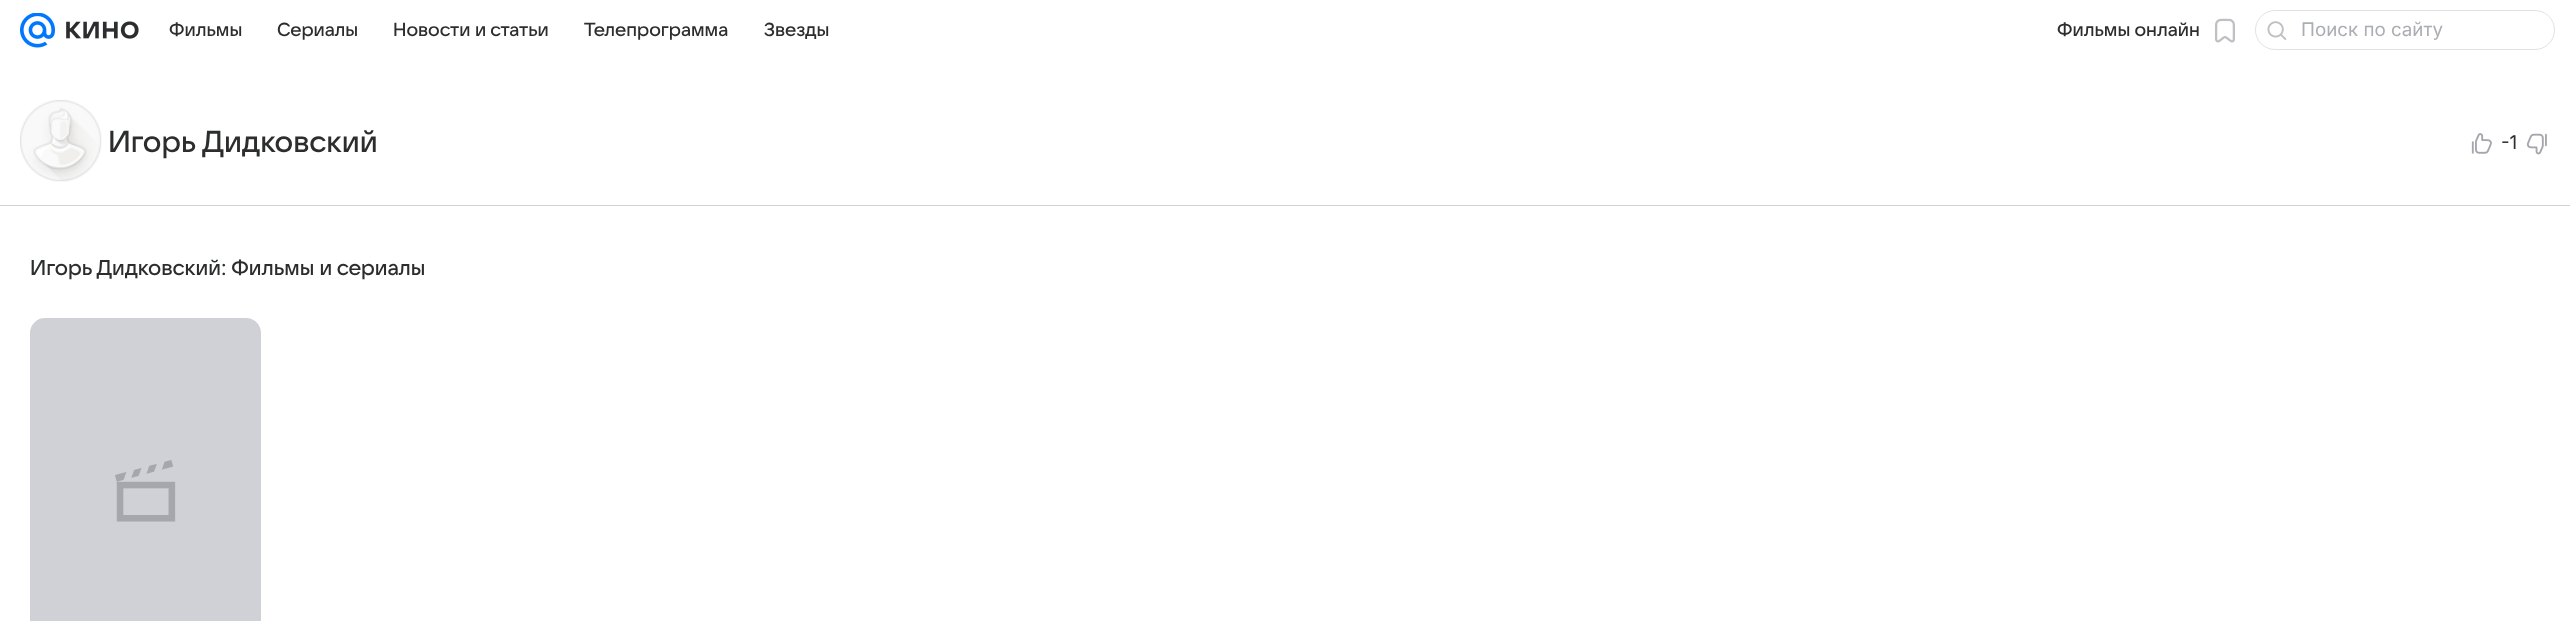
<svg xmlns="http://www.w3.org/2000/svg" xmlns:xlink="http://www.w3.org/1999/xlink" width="2570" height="621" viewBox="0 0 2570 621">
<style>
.cls-1{font:500 18.75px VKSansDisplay;fill:#2c2d2e}
.cls-2{font:18.75px Inter;fill:#aaadb3}
.cls-3{font:500 30px VKSansDisplay;fill:#2c2d2e}
.cls-4{font:18.75px Inter;fill:#2c2d2e}
.cls-5{font:500 21.25px VKSansDisplay;fill:#2c2d2e}
</style>
<rect width="100%" height="100%" fill="#ffffff"/>
<image xlink:href="image0.png" x="20" y="13" width="35" height="35"/>
<image xlink:href="image1.png" x="66" y="21" width="73" height="18"/>
<image xlink:href="image2.png" x="2215" y="18" width="20" height="25"/>
<rect fill="none" stroke="#e0e2e8" x="2255.5" y="10.5" width="299" height="39" rx="19.5"/>
<image xlink:href="image3.png" x="2267" y="21" width="20" height="19"/>
<rect fill="#d1d1d1" x="0" y="205" width="2570" height="1"/>
<image xlink:href="image4.png" x="20" y="100" width="82" height="82"/>
<image xlink:href="image5.png" x="2471" y="133" width="21" height="21"/>
<image xlink:href="image6.png" x="2526" y="133" width="21" height="22"/>
<rect fill="#cfd1d6" x="30" y="318" width="231" height="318" rx="15"/>
<image xlink:href="image7.png" x="115" y="460" width="61" height="62"/>
<text class="cls-1" x="169" y="36">Фильмы</text>
<text class="cls-1" x="277" y="36">Сериалы</text>
<text class="cls-1" x="393" y="36">Новости и статьи</text>
<text class="cls-1" x="584" y="36">Телепрограмма</text>
<text class="cls-1" x="764" y="36">Звезды</text>
<text class="cls-1" x="2057" y="36">Фильмы онлайн</text>
<text class="cls-2" x="2301" y="36">Поиск по сайту</text>
<text class="cls-3" x="108" y="152">Игорь Дидковский</text>
<text class="cls-4" x="2501" y="149">-1</text>
<text class="cls-5" x="30" y="275">Игорь Дидковский: Фильмы и сериалы</text>
</svg>
